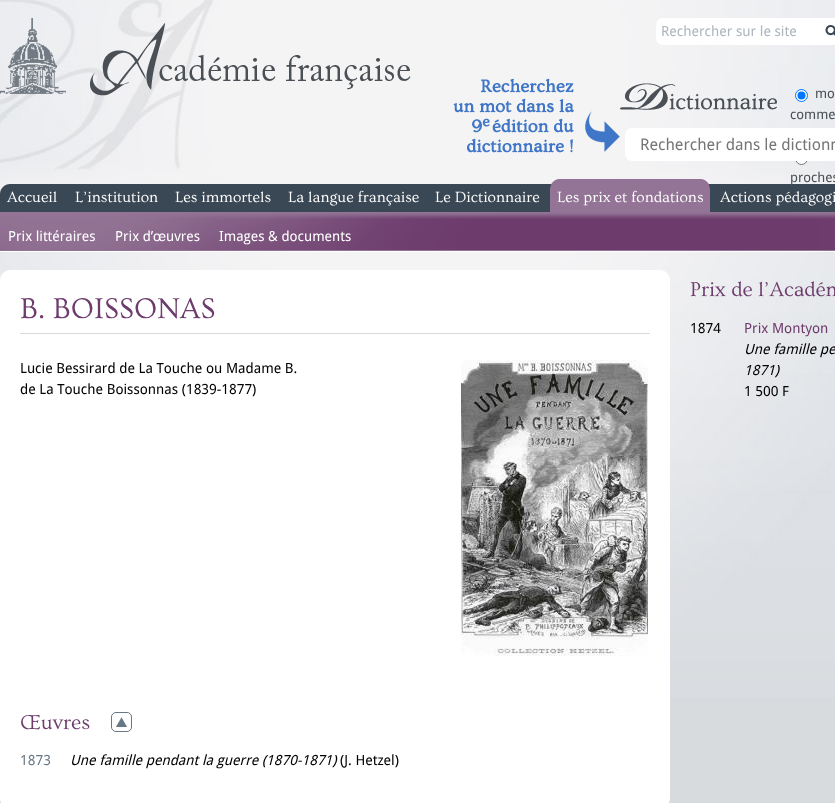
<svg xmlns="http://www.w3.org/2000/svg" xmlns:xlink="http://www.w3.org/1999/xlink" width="835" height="803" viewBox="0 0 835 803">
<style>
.cls-1{font:14px Droid Sans;fill:#aeb6bd}
.cls-2{font:13.5px Droid Sans;fill:#4a5056}
.cls-3{font:16px Droid Sans;fill:#757575}
.cls-4{font:15.5px Ovo;fill:#ffffff}
.cls-5{font:13.9px Droid Sans;fill:#ffffff}
.cls-6{font:13.9px Liberation Sans;fill:#ffffff}
.cls-7{font:30px Ovo;fill:#6d3c6d}
.cls-8{font:14px Droid Sans;fill:#000000}
.cls-9{font:21px Ovo;fill:#6d3c6d}
.cls-10{font:14px Droid Sans;fill:#687784}
.cls-11{font:italic 14px Droid Sans;fill:#000000}
.cls-12{font:14px Droid Sans;fill:#6d3c6d}
</style>
<rect width="100%" height="100%" fill="#d7dbde"/>
<image xlink:href="image0.png" x="0" y="0" width="835" height="698"/>
<image xlink:href="image1.png" x="0" y="18" width="411" height="78"/>
<rect fill="#ffffff" x="656" y="18" width="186" height="27" rx="7"/>
<image xlink:href="image2.png" x="825" y="25" width="10" height="11"/>
<image xlink:href="image3.png" x="453" y="78" width="167" height="75"/>
<image xlink:href="image4.png" x="620" y="83" width="157" height="27"/>
<circle fill="#ffffff" stroke="#0075ff" cx="801.5" cy="95.5" r="6"/>
<circle fill="#0075ff" cx="801.5" cy="95.5" r="4"/>
<circle fill="#ffffff" stroke="#767676" cx="801.5" cy="158.5" r="6"/>
<rect fill="#ffffff" x="625" y="128" width="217" height="33" rx="7"/>
<path fill="#3a4754" d="M10 184H835C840.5 184 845 188.5 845 194V252H0V194C0 188.5 4.5 184 10 184Z"/>
<path fill="#6d3c6d" d="M560 179H700C705.5 179 710 183.5 710 189V212H550V189C550 183.5 554.5 179 560 179Z"/>
<image xlink:href="image5.png" x="550" y="179" width="160" height="33"/>
<rect fill="#6d3c6d" x="0" y="212" width="835" height="39"/>
<image xlink:href="image6.png" x="0" y="212" width="835" height="39"/>
<rect fill="#ffffff" x="0" y="251" width="835" height="1"/>
<rect fill="#ffffff" x="0" y="270" width="670" height="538" rx="10"/>
<rect fill="#d9d9d9" x="20" y="333" width="630" height="1"/>
<image xlink:href="image7.png" x="461" y="360" width="187" height="296"/>
<image xlink:href="image8.png" x="116" y="717" width="11" height="10"/>
<rect fill="none" stroke="#687784" x="111.5" y="712.5" width="20" height="19" rx="4.5"/>
<text class="cls-1" x="661" y="36">Rechercher sur le site</text>
<text class="cls-2" x="815" y="98">mo</text>
<text class="cls-2" x="790" y="119">comme</text>
<text class="cls-2" x="790" y="182">proches</text>
<text class="cls-3" x="640" y="150">Rechercher dans le dictionn</text>
<text class="cls-4" x="557" y="202">Les prix et fondations</text>
<text class="cls-5" x="8" y="241">Prix littéraires</text>
<text class="cls-5" x="115" y="241">Prix d’</text>
<text class="cls-6" x="153" y="241">œ</text>
<text class="cls-5" x="166" y="241">uvres</text>
<text class="cls-5" x="219" y="241">Images &amp; documents</text>
<text class="cls-4" x="7" y="202">Accueil</text>
<text class="cls-4" x="75" y="202">L’institution</text>
<text class="cls-4" x="175" y="202">Les immortels</text>
<text class="cls-4" x="288" y="202">La langue française</text>
<text class="cls-4" x="435" y="202">Le Dictionnaire</text>
<text class="cls-4" x="720" y="202">Actions pédagogi</text>
<text class="cls-7" x="20" y="318">B. BOISSONAS</text>
<text class="cls-8"><tspan x="20" y="373">Lucie Bessirard de La Touche ou Madame B.</tspan><tspan x="20" y="394">de La Touche Boissonnas (1839-1877)</tspan></text>
<text class="cls-9" x="20" y="729">Œuvres</text>
<text class="cls-10" x="20" y="765">1873</text>
<text class="cls-11" x="70" y="765">Une famille pendant la guerre (1870-1871)</text>
<text class="cls-8" x="340" y="765">(J. Hetzel)</text>
<text class="cls-9" x="690" y="296">Prix de l’Académ</text>
<text class="cls-8" x="690" y="333">1874</text>
<text class="cls-12" x="744" y="333">Prix Montyon</text>
<text class="cls-11"><tspan x="744" y="354">Une famille pe</tspan><tspan x="744" y="375">1871)</tspan></text>
<text class="cls-8" x="744" y="396">1 500 F</text>
</svg>
